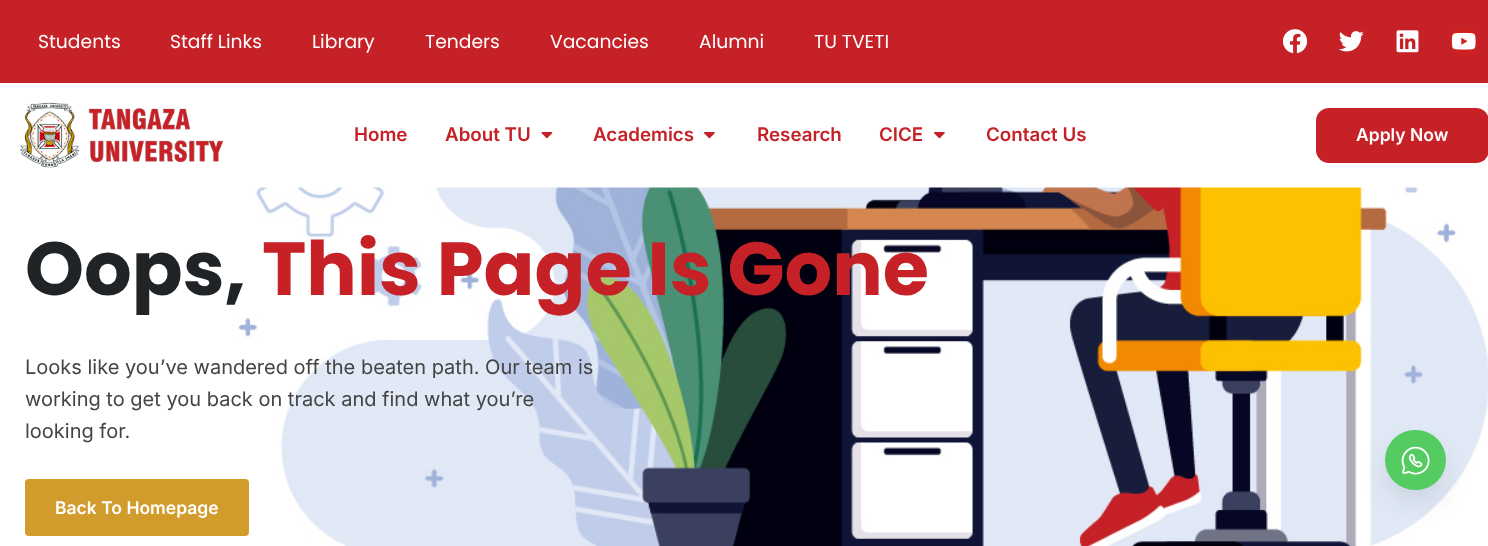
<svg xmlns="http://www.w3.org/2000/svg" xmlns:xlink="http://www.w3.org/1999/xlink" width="1488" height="546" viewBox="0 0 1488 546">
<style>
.cls-1{font:18.75px Poppins;fill:#ffffff}
.cls-2{font:600 18.75px Inter;fill:#c52127}
.cls-3{font:600 17.5px Inter;fill:#ffffff}
.cls-4{font:bold 75px Poppins;fill:#212427}
.cls-5{font:bold 75px Poppins;fill:#c52127}
.cls-6{font:20px Inter;fill:#444444}
</style>
<rect width="100%" height="100%" fill="#ffffff"/>
<rect fill="#c52127" x="0" y="0" width="1488" height="83"/>
<image xlink:href="image0.png" x="1283" y="29" width="25" height="25"/>
<image xlink:href="image1.png" x="1339" y="31" width="25" height="21"/>
<image xlink:href="image2.png" x="1396" y="30" width="23" height="23"/>
<rect fill="#cd201f" x="1451" y="29" width="25" height="25" rx="2.5"/>
<image xlink:href="image3.png" x="1451" y="32" width="25" height="18"/>
<image xlink:href="image4.png" x="20" y="102" width="203" height="66"/>
<image xlink:href="image5.png" x="541" y="132" width="12" height="7"/>
<image xlink:href="image6.png" x="704" y="132" width="11" height="7"/>
<image xlink:href="image6.png" x="934" y="132" width="11" height="7"/>
<rect fill="#c52127" x="1316" y="108" width="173" height="55" rx="13"/>
<image xlink:href="image7.png" x="238" y="187" width="1250" height="359"/>
<rect fill="#d19c2c" x="25" y="479" width="224" height="57" rx="4"/>
<rect fill="#161c2d" fill-opacity="0.1" filter="blur(12.5px)" x="1385" y="443" width="61" height="60" rx="30"/>
<rect fill="#54cc61" x="1385" y="430" width="61" height="60" rx="30"/>
<image xlink:href="image8.png" x="1401" y="446" width="29" height="29"/>
<text class="cls-1" x="38" y="48">Students</text>
<text class="cls-1" x="170" y="48">Staff Links</text>
<text class="cls-1" x="312" y="48">Library</text>
<text class="cls-1" x="425" y="48">Tenders</text>
<text class="cls-1" x="550" y="48">Vacancies</text>
<text class="cls-1" x="699" y="48">Alumni</text>
<text class="cls-1" x="814" y="48">TU TVETI</text>
<text class="cls-2" x="354" y="141">Home</text>
<text class="cls-2" x="445" y="141">About TU</text>
<text class="cls-2" x="593" y="141">Academics</text>
<text class="cls-2" x="757" y="141">Research</text>
<text class="cls-2" x="879" y="141">CICE</text>
<text class="cls-2" x="986" y="141">Contact Us</text>
<text class="cls-3" x="1356" y="141">Apply Now</text>
<text class="cls-4" x="25" y="295">Oops,</text>
<text class="cls-5" x="262" y="295">This Page Is Gone</text>
<text class="cls-6"><tspan x="25" y="374">Looks like you’ve wandered off the beaten path. Our team is</tspan><tspan x="25" y="406">working to get you back on track and find what you’re</tspan><tspan x="25" y="438">looking for.</tspan></text>
<text class="cls-3" x="55" y="514">Back To Homepage</text>
</svg>
